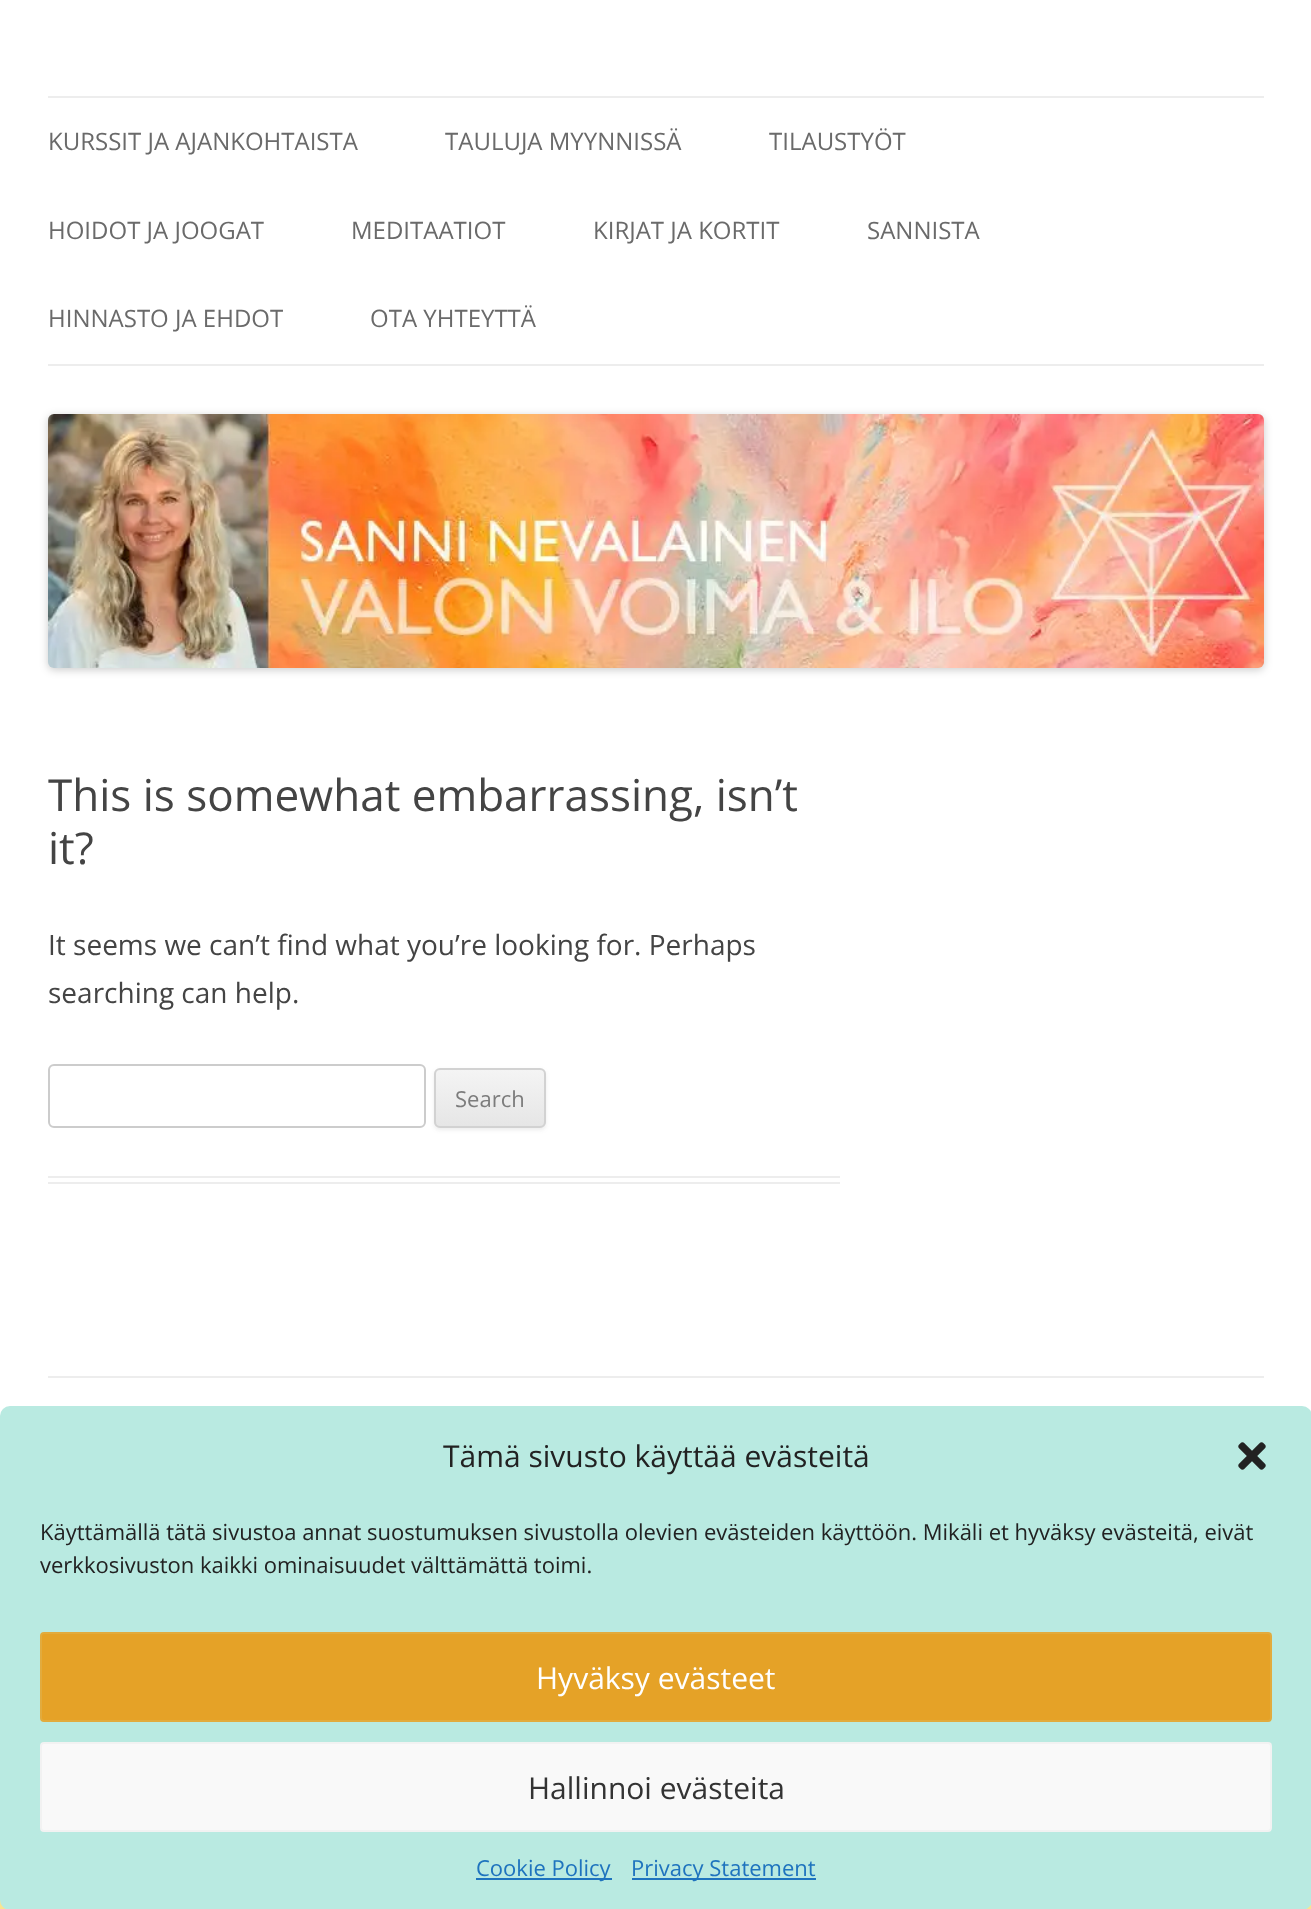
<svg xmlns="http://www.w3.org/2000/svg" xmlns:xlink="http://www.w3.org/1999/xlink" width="1311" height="1909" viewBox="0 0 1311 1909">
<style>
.cls-1{font:24px Open Sans;fill:#6a6a6a}
.cls-2{font:44px Open Sans;fill:#444444}
.cls-3{font:28px Open Sans;fill:#444444}
.cls-4{font:22px Open Sans;fill:#7c7c7c}
.cls-5{font:30px Open Sans;fill:#222222}
.cls-6{font:22px Open Sans;fill:#222222}
.cls-7{font:30px Open Sans;fill:#ffffff}
.cls-8{font:30px Open Sans;fill:#333333}
.cls-9{font:22px Open Sans;fill:#1e73be}
</style>
<defs>
<clipPath id="clip1"><rect x="434" y="1068" width="112" height="60" rx="6"/></clipPath>
<linearGradient id="g1" gradientUnits="userSpaceOnUse" x1="490" y1="1070" x2="490" y2="1126"><stop offset="0" stop-color="#f4f4f4"/><stop offset="1" stop-color="#e6e6e6"/></linearGradient>
</defs>
<rect width="100%" height="100%" fill="#f9e490"/>
<rect fill="#ffffff" x="0" y="0" width="1311" height="1416"/>
<rect fill="#ededed" x="48" y="96" width="1216" height="2"/>
<rect fill="#ededed" x="48" y="364" width="1216" height="2"/>
<rect fill="#000000" fill-opacity="0.2" filter="blur(4px)" x="48" y="416" width="1216" height="254" rx="6"/>
<image xlink:href="image0.png" x="48" y="414" width="1216" height="254"/>
<rect fill="#ededed" x="48" y="1176" width="792" height="2"/>
<rect fill="#ededed" x="48" y="1182" width="792" height="2"/>
<rect fill="none" stroke="#cccccc" stroke-width="2" x="49" y="1065" width="376" height="62" rx="5"/>
<rect fill="#404040" fill-opacity="0.1" filter="blur(2px)" x="434" y="1070" width="112" height="60" rx="6"/>
<g clip-path="url(#clip1)">
<rect fill="url(#g1)" x="434" y="1070" width="112" height="56"/>
</g>
<rect fill="none" stroke="#d2d2d2" stroke-width="2" x="435" y="1069" width="110" height="58" rx="5"/>
<rect fill="#ededed" x="48" y="1376" width="1216" height="2"/>
<rect fill="#b9eae1" x="0" y="1406" width="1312" height="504" rx="10"/>
<image xlink:href="image1.png" x="1238" y="1442" width="28" height="28"/>
<rect fill="#e5a227" stroke="#e2ab3d" stroke-width="2" x="41" y="1633" width="1230" height="88" rx="3"/>
<rect fill="#f9f9f9" stroke="#f2f2f2" stroke-width="2" x="41" y="1743" width="1230" height="88" rx="3"/>
<rect fill="#1e73be" x="476" y="1878" width="136" height="2"/>
<rect fill="#1e73be" x="632" y="1878" width="184" height="2"/>
<text class="cls-1" x="48" y="150">KURSSIT JA AJANKOHTAISTA</text>
<text class="cls-1" x="445" y="150">TAULUJA MYYNNISSÄ</text>
<text class="cls-1" x="769" y="150">TILAUSTYÖT</text>
<text class="cls-1" x="48" y="239">HOIDOT JA JOOGAT</text>
<text class="cls-1" x="351" y="239">MEDITAATIOT</text>
<text class="cls-1" x="593" y="239">KIRJAT JA KORTIT</text>
<text class="cls-1" x="867" y="239">SANNISTA</text>
<text class="cls-1" x="48" y="327">HINNASTO JA EHDOT</text>
<text class="cls-1" x="370" y="327">OTA YHTEYTTÄ</text>
<text class="cls-2"><tspan x="48" y="811">This is somewhat embarrassing, isn’t</tspan><tspan x="48" y="864">it?</tspan></text>
<text class="cls-3"><tspan x="48" y="955">It seems we can’t find what you’re looking for. Perhaps</tspan><tspan x="48" y="1003">searching can help.</tspan></text>
<text class="cls-4" x="455" y="1107">Search</text>
<text class="cls-5" x="443" y="1467">Tämä sivusto käyttää evästeitä</text>
<text class="cls-6"><tspan x="40" y="1540">Käyttämällä tätä sivustoa annat suostumuksen sivustolla olevien evästeiden käyttöön. Mikäli et hyväksy evästeitä, eivät</tspan><tspan x="40" y="1573">verkkosivuston kaikki ominaisuudet välttämättä toimi.</tspan></text>
<text class="cls-7" x="536" y="1689">Hyväksy evästeet</text>
<text class="cls-8" x="528" y="1799">Hallinnoi evästeita</text>
<text class="cls-9" x="476" y="1876">Cookie Policy</text>
<text class="cls-9" x="631" y="1876">Privacy Statement</text>
</svg>
